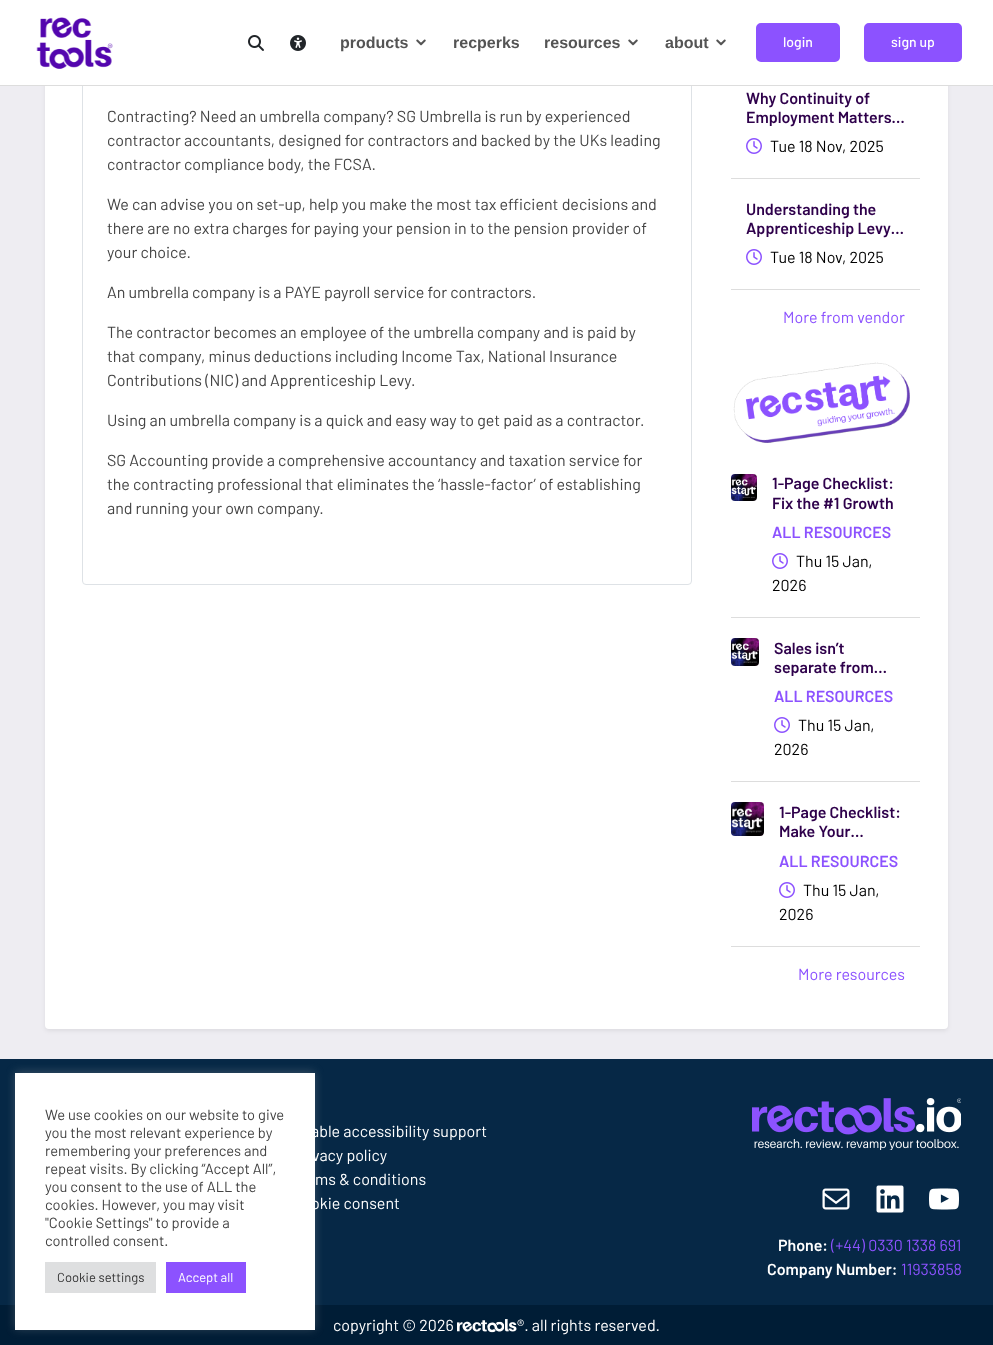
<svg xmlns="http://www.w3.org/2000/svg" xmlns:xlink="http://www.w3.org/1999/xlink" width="993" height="1345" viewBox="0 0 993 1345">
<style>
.cls-1{font:bold 16px Liberation Sans;fill:#545454}
.cls-2{font:500 14px Barlow;fill:#ffffff}
.cls-3{font:16px Barlow;fill:#444444}
.cls-4{font:600 16px Barlow;fill:#2e004b}
.cls-5{font:16px Barlow;fill:#000000}
.cls-6{font:16px Barlow;fill:#8c52ff}
.cls-7{font:600 16px Barlow;fill:#8c52ff}
.cls-8{font:16px Barlow;fill:#ffffff}
.cls-9{font:600 16px Barlow;fill:#ffffff}
.cls-10{font:14.7px Barlow;fill:#444444}
.cls-11{font:13px Barlow;fill:#333333}
.cls-12{font:13px Barlow;fill:#ffffff}
</style>
<rect width="100%" height="100%" fill="#eeedf2"/>
<rect fill="#000000" fill-opacity="0.07" filter="blur(2px)" x="45" y="-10" width="903" height="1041" rx="4"/>
<rect fill="#ffffff" x="45" y="-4" width="903" height="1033" rx="4"/>
<rect fill="none" stroke="#dee2e6" x="82.5" y="79.5" width="609" height="505" rx="3.5"/>
<rect fill="#ffffff" x="0" y="0" width="993" height="85"/>
<rect fill="#dddddd" x="0" y="85" width="993" height="1"/>
<image xlink:href="image0.png" x="36" y="17" width="77" height="52"/>
<image xlink:href="image1.png" x="248" y="35" width="16" height="16"/>
<image xlink:href="image2.png" x="290" y="35" width="16" height="16"/>
<image xlink:href="image3.png" x="416" y="39" width="10" height="7"/>
<image xlink:href="image3.png" x="628" y="39" width="10" height="7"/>
<image xlink:href="image3.png" x="716" y="39" width="10" height="7"/>
<rect fill="#8c52ff" stroke="#8c52ff" stroke-width="2" x="757" y="24" width="82" height="37" rx="4"/>
<rect fill="#8c52ff" stroke="#8c52ff" stroke-width="2" x="865" y="24" width="96" height="37" rx="4"/>
<rect fill="#dddddd" x="731" y="178" width="189" height="1"/>
<image xlink:href="image4.png" x="746" y="138" width="16" height="16"/>
<rect fill="#dddddd" x="731" y="289" width="189" height="1"/>
<image xlink:href="image4.png" x="746" y="249" width="16" height="16"/>
<image xlink:href="image5.png" x="733" y="362" width="177" height="81"/>
<rect fill="#dddddd" x="731" y="617" width="189" height="1"/>
<image xlink:href="image6.png" x="731" y="474" width="26" height="27"/>
<image xlink:href="image4.png" x="772" y="553" width="16" height="16"/>
<rect fill="#dddddd" x="731" y="781" width="189" height="1"/>
<image xlink:href="image7.png" x="731" y="638" width="28" height="28"/>
<image xlink:href="image4.png" x="774" y="717" width="16" height="16"/>
<rect fill="#dddddd" x="731" y="946" width="189" height="1"/>
<image xlink:href="image8.png" x="731" y="802" width="33" height="34"/>
<image xlink:href="image4.png" x="779" y="882" width="16" height="16"/>
<rect fill="#062846" x="0" y="1059" width="993" height="246"/>
<image xlink:href="image9.png" x="752" y="1098" width="209" height="52"/>
<image xlink:href="image10.png" x="822" y="1188" width="28" height="22"/>
<image xlink:href="image11.png" x="876" y="1185" width="28" height="28"/>
<image xlink:href="image12.png" x="929" y="1188" width="30" height="22"/>
<rect fill="#001d36" x="0" y="1305" width="993" height="40"/>
<image xlink:href="image13.png" x="457" y="1319" width="60" height="14"/>
<rect fill="#acabab" fill-opacity="0.3" filter="blur(5px)" x="15" y="1072" width="300" height="257"/>
<rect fill="#ffffff" x="15" y="1073" width="300" height="257"/>
<rect fill="#dedfe0" x="45" y="1262" width="111" height="31"/>
<rect fill="#8c52ff" x="166" y="1262" width="80" height="31"/>
<text class="cls-1" x="340" y="48">products</text>
<text class="cls-1" x="453" y="48">recperks</text>
<text class="cls-1" x="544" y="48">resources</text>
<text class="cls-1" x="665" y="48">about</text>
<text class="cls-2" x="783" y="47">login</text>
<text class="cls-2" x="891" y="47">sign up</text>
<text class="cls-3"><tspan x="107" y="122">Contracting? Need an umbrella company? SG Umbrella is run by experienced</tspan><tspan x="107" y="146">contractor accountants, designed for contractors and backed by the UKs leading</tspan><tspan x="107" y="170">contractor compliance body, the FCSA.</tspan></text>
<text class="cls-3"><tspan x="107" y="210">We can advise you on set-up, help you make the most tax efficient decisions and</tspan><tspan x="107" y="234">there are no extra charges for paying your pension in to the pension provider of</tspan><tspan x="107" y="258">your choice.</tspan></text>
<text class="cls-3" x="107" y="298">An umbrella company is a PAYE payroll service for contractors.</text>
<text class="cls-3"><tspan x="107" y="338">The contractor becomes an employee of the umbrella company and is paid by</tspan><tspan x="107" y="362">that company, minus deductions including Income Tax, National Insurance</tspan><tspan x="107" y="386">Contributions (NIC) and Apprenticeship Levy.</tspan></text>
<text class="cls-3" x="107" y="426">Using an umbrella company is a quick and easy way to get paid as a contractor.</text>
<text class="cls-3"><tspan x="107" y="466">SG Accounting provide a comprehensive accountancy and taxation service for</tspan><tspan x="107" y="490">the contracting professional that eliminates the ‘hassle-factor’ of establishing</tspan><tspan x="107" y="514">and running your own company.</tspan></text>
<text class="cls-4"><tspan x="746" y="104">Why Continuity of</tspan><tspan x="746" y="123">Employment Matters…</tspan></text>
<text class="cls-5" x="770" y="152">Tue 18 Nov, 2025</text>
<text class="cls-4"><tspan x="746" y="215">Understanding the</tspan><tspan x="746" y="234">Apprenticeship Levy…</tspan></text>
<text class="cls-5" x="770" y="263">Tue 18 Nov, 2025</text>
<text class="cls-6" x="783" y="323">More from vendor</text>
<text class="cls-4"><tspan x="772" y="489">1-Page Checklist:</tspan><tspan x="772" y="509">Fix the #1 Growth</tspan></text>
<text class="cls-7" x="772" y="538">ALL RESOURCES</text>
<text class="cls-5" x="796" y="567">Thu 15 Jan,</text>
<text class="cls-5" x="772" y="591">2026</text>
<text class="cls-4"><tspan x="774" y="654">Sales isn’t</tspan><tspan x="774" y="673">separate from…</tspan></text>
<text class="cls-7" x="774" y="702">ALL RESOURCES</text>
<text class="cls-5" x="798" y="731">Thu 15 Jan,</text>
<text class="cls-5" x="774" y="755">2026</text>
<text class="cls-4"><tspan x="779" y="818">1-Page Checklist:</tspan><tspan x="779" y="837">Make Your…</tspan></text>
<text class="cls-7" x="779" y="867">ALL RESOURCES</text>
<text class="cls-5" x="803" y="896">Thu 15 Jan,</text>
<text class="cls-5" x="779" y="920">2026</text>
<text class="cls-6" x="798" y="980">More resources</text>
<text class="cls-8" x="311" y="1137">able accessibility support</text>
<text class="cls-8" x="312" y="1161">vacy policy</text>
<text class="cls-8" x="315" y="1185">ms &amp; conditions</text>
<text class="cls-8" x="311" y="1209">okie consent</text>
<text class="cls-9" x="778" y="1251">Phone:</text>
<text class="cls-6" x="831" y="1251">(+44) 0330 1338 691</text>
<text class="cls-9" x="767" y="1275">Company Number:</text>
<text class="cls-6" x="901" y="1275">11933858</text>
<text class="cls-8" x="333" y="1331">copyright © 2026</text>
<text class="cls-8" x="517" y="1331">®. all rights reserved.</text>
<text class="cls-10"><tspan x="45" y="1120">We use cookies on our website to give</tspan><tspan x="45" y="1138">you the most relevant experience by</tspan><tspan x="45" y="1156">remembering your preferences and</tspan><tspan x="45" y="1174">repeat visits. By clicking “Accept All”,</tspan><tspan x="45" y="1192">you consent to the use of ALL the</tspan><tspan x="45" y="1210">cookies. However, you may visit</tspan><tspan x="45" y="1228">"Cookie Settings" to provide a</tspan><tspan x="45" y="1246">controlled consent.</tspan></text>
<text class="cls-11" x="57" y="1282">Cookie settings</text>
<text class="cls-12" x="178" y="1282">Accept all</text>
</svg>
